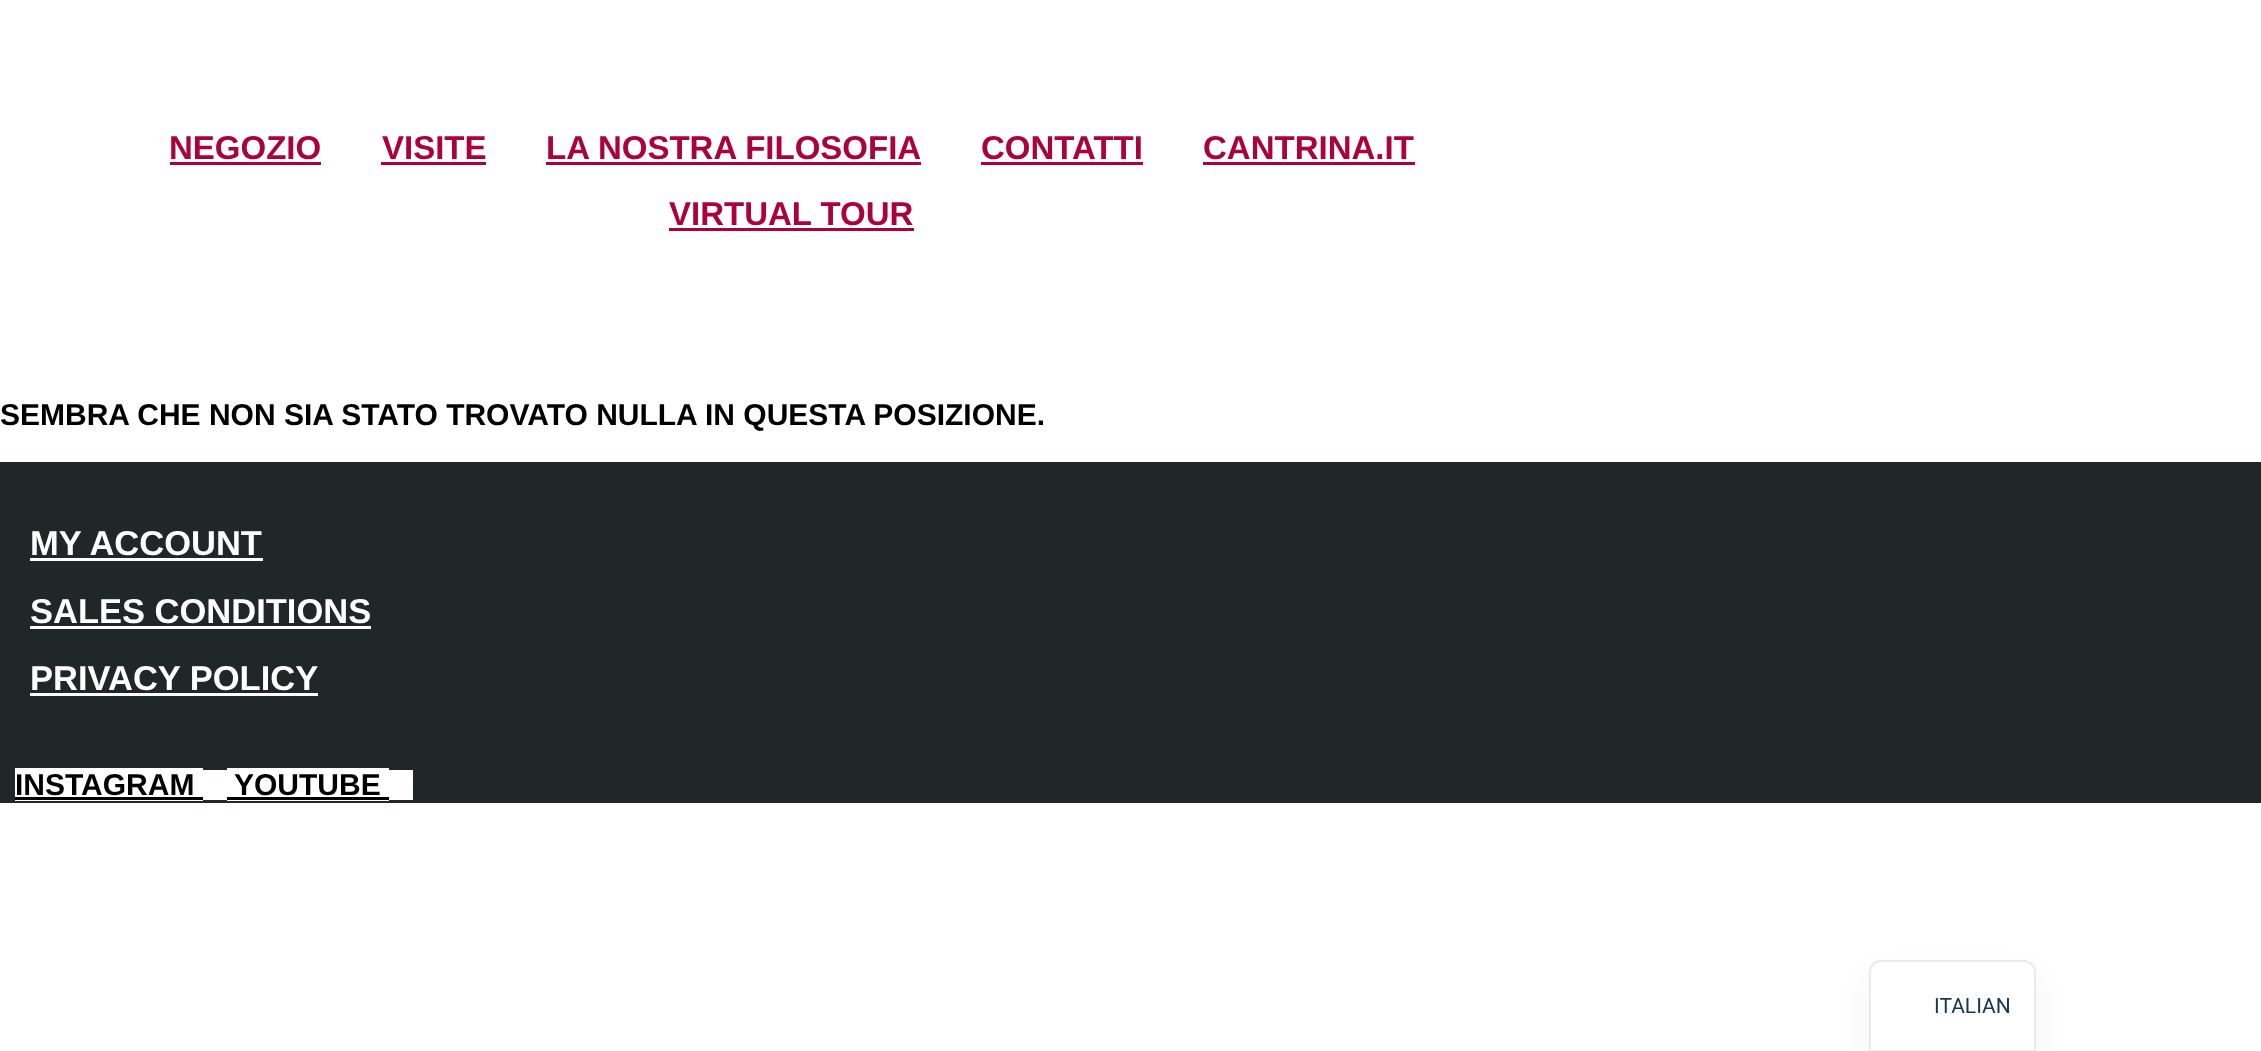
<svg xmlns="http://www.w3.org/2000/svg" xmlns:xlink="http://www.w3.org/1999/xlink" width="2261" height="1051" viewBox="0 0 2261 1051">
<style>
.cls-1{font:bold 33px Liberation Sans;fill:#ac023c}
.cls-2{font:bold 30px Liberation Sans;fill:#000000}
.cls-3{font:bold 34.5px Liberation Sans;fill:#ffffff}
.cls-4{font:21px Roboto;fill:#143852}
</style>
<rect width="100%" height="100%" fill="#ffffff"/>
<rect fill="#ac023c" x="170" y="162" width="151" height="3"/>
<rect fill="#ac023c" x="381" y="162" width="105" height="3"/>
<rect fill="#ac023c" x="546" y="162" width="375" height="3"/>
<rect fill="#ac023c" x="981" y="162" width="162" height="3"/>
<rect fill="#ac023c" x="1203" y="162" width="212" height="3"/>
<rect fill="#ac023c" x="669" y="228" width="245" height="3"/>
<rect fill="#212629" x="0" y="462" width="2261" height="341"/>
<rect fill="#ffffff" x="30" y="558" width="233" height="3"/>
<rect fill="#ffffff" x="30" y="626" width="341" height="3"/>
<rect fill="#ffffff" x="30" y="693" width="288" height="3"/>
<rect fill="#ffffff" x="15" y="768" width="188" height="33"/>
<rect fill="#ffffff" x="203" y="770" width="24" height="30"/>
<rect fill="#ffffff" x="227" y="768" width="162" height="33"/>
<rect fill="#000000" x="15" y="797" width="188" height="3"/>
<rect fill="#000000" x="227" y="797" width="162" height="3"/>
<rect fill="#ffffff" x="389" y="770" width="24" height="30"/>
<rect fill="#000000" fill-opacity="0.05" filter="blur(15px)" x="1869" y="975" width="167" height="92" rx="12"/>
<path fill="#ffffff" stroke="#e7ebee" stroke-width="2" d="M1881 961H2024C2030 961 2035 966 2035 972V1051H1870V972C1870 966 1875 961 1881 961Z"/>
<text class="cls-1" x="169" y="159">NEGOZIO</text>
<text class="cls-1" x="382" y="159">VISITE</text>
<text class="cls-1" x="546" y="159">LA NOSTRA FILOSOFIA</text>
<text class="cls-1" x="981" y="159">CONTATTI</text>
<text class="cls-1" x="1203" y="159">CANTRINA.IT</text>
<text class="cls-1" x="669" y="225">VIRTUAL TOUR</text>
<text class="cls-2" x="0" y="425">SEMBRA CHE NON SIA STATO TROVATO NULLA IN QUESTA POSIZIONE.</text>
<text class="cls-3"><tspan x="30" y="555">MY ACCOUNT</tspan><tspan x="30" y="623">SALES CONDITIONS</tspan><tspan x="30" y="690">PRIVACY POLICY</tspan></text>
<text class="cls-2" x="15" y="795">INSTAGRAM</text>
<text class="cls-2" x="234" y="795">YOUTUBE</text>
<text class="cls-4" x="1934" y="1013">ITALIAN</text>
</svg>
